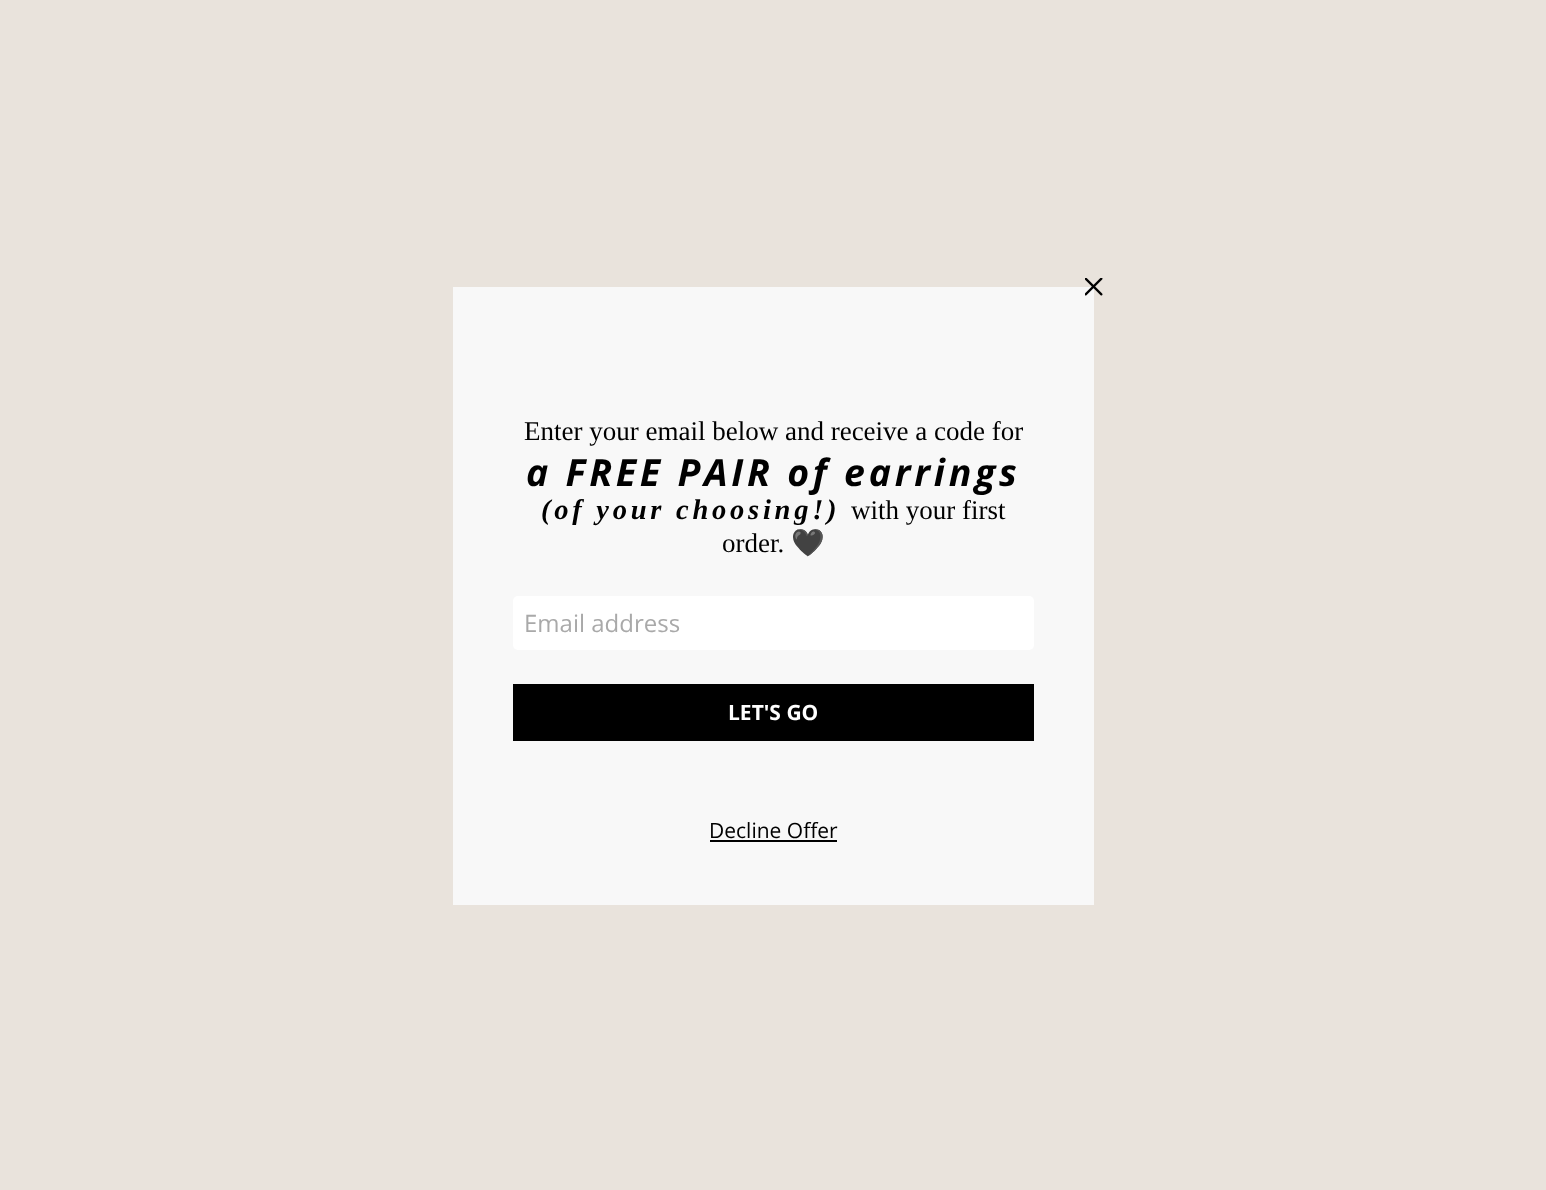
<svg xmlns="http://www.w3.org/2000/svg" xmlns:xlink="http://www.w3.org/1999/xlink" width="1546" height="1190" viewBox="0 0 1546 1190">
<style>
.cls-1{font:27px Liberation Serif;fill:#000000}
.cls-2{font:italic bold 37.5px Open Sans;letter-spacing:3.75px;fill:#000000}
.cls-3{font:italic bold 28.5px Liberation Serif;letter-spacing:3.75px;fill:#000000}
.cls-4{font:27px Noto Color Emoji;fill:#000000}
.cls-5{font:24px Open Sans;fill:#a9a9a9}
.cls-6{font:bold 21px Open Sans;fill:#ffffff}
.cls-7{font:21px Open Sans;fill:#000000}
</style>
<rect width="100%" height="100%" fill="#e9e3dc"/>
<rect fill="#f8f8f8" x="453" y="287" width="641" height="618"/>
<image xlink:href="image0.png" x="1085" y="278" width="18" height="18"/>
<rect fill="#ffffff" x="513" y="596" width="521" height="54" rx="5"/>
<rect fill="#000000" x="513" y="684" width="521" height="57"/>
<rect fill="#000000" x="710" y="840" width="127" height="2"/>
<text class="cls-1" x="524" y="440">Enter your email below and receive a code for</text>
<text class="cls-2" x="526" y="486">a FREE PAIR of earrings</text>
<text class="cls-3" x="541" y="519">(of your choosing!)</text>
<text class="cls-1" x="851" y="519">with your first</text>
<text class="cls-1" x="722" y="552">order.</text>
<text class="cls-4" x="791" y="552">🖤</text>
<text class="cls-5" x="524" y="632">Email address</text>
<text class="cls-6" x="728" y="720">LET'S GO</text>
<text class="cls-7" x="709" y="838">Decline Offer</text>
</svg>
